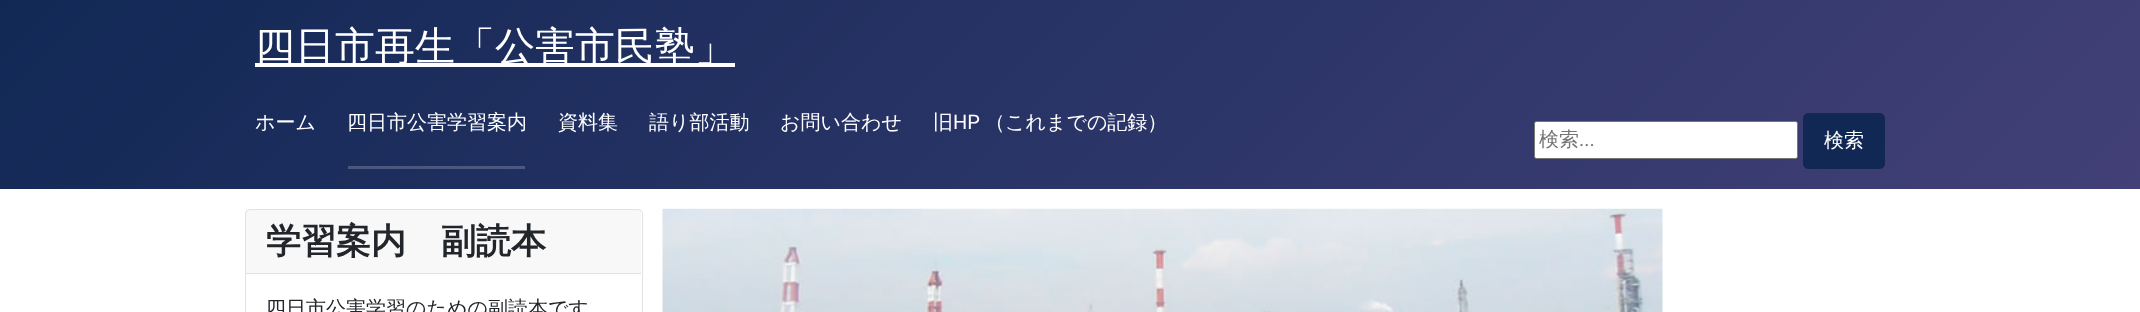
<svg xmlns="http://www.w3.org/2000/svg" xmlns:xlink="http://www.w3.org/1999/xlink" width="2140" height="312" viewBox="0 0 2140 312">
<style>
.cls-1{font:500 40px WenQuanYi Zen Hei;fill:#ffffff}
.cls-2{font:500 20px WenQuanYi Zen Hei;fill:#ffffff}
.cls-3{font:20px Roboto;fill:#ffffff}
.cls-4{font:500 20px WenQuanYi Zen Hei;fill:#757575}
.cls-5{font:20px Roboto;fill:#757575}
.cls-6{font:bold 35px WenQuanYi Zen Hei;fill:#22262a}
.cls-7{font:500 20px WenQuanYi Zen Hei;fill:#22262a}
</style>
<defs>
<linearGradient id="g1" gradientUnits="userSpaceOnUse" x1="488" y1="-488" x2="1652" y2="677"><stop offset="0" stop-color="#112855"/><stop offset="1" stop-color="#424077"/></linearGradient>
<linearGradient id="g2" gradientUnits="userSpaceOnUse" x1="488" y1="-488" x2="1652" y2="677"><stop offset="0" stop-color="#415377"/><stop offset="1" stop-color="#686692"/></linearGradient>
</defs>
<rect width="100%" height="100%" fill="#ffffff"/>
<rect fill="url(#g1)" x="0" y="0" width="2140" height="189"/>
<rect fill="url(#g2)" x="348" y="166" width="177" height="3"/>
<rect fill="#ffffff" x="255" y="63" width="480" height="4"/>
<rect fill="#ffffff" stroke="#767676" x="1534.5" y="121.5" width="263" height="37" rx="2"/>
<rect fill="#112855" stroke="#112855" x="1803.5" y="113.5" width="81" height="55" rx="4.5"/>
<rect fill="none" stroke="#dfe3e7" x="245.5" y="209.5" width="397" height="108" rx="4.5"/>
<rect fill="#22262a" fill-opacity="0.03" x="246" y="210" width="395" height="63"/>
<rect fill="#dfe3e7" x="246" y="273" width="395" height="1"/>
<image xlink:href="image0.png" x="662" y="208" width="1001" height="104"/>
<text class="cls-1" x="255" y="60">四日市再生「公害市民塾」</text>
<text class="cls-2" x="255" y="129">ホーム</text>
<text class="cls-2" x="347" y="129">四日市公害学習案内</text>
<text class="cls-2" x="558" y="129">資料集</text>
<text class="cls-2" x="649" y="129">語り部活動</text>
<text class="cls-2" x="780" y="129">お問い合わせ</text>
<text class="cls-2" x="933" y="129">旧</text>
<text class="cls-3" x="953" y="129">HP</text>
<text class="cls-2" x="985" y="129">（これまでの記録）</text>
<text class="cls-4" x="1539" y="146">検索</text>
<text class="cls-5" x="1579" y="146">...</text>
<text class="cls-2" x="1824" y="147">検索</text>
<text class="cls-6" x="266" y="253">学習案内　副読本</text>
<text class="cls-7" x="266" y="315">四日市公害学習のための副読本です</text>
</svg>
